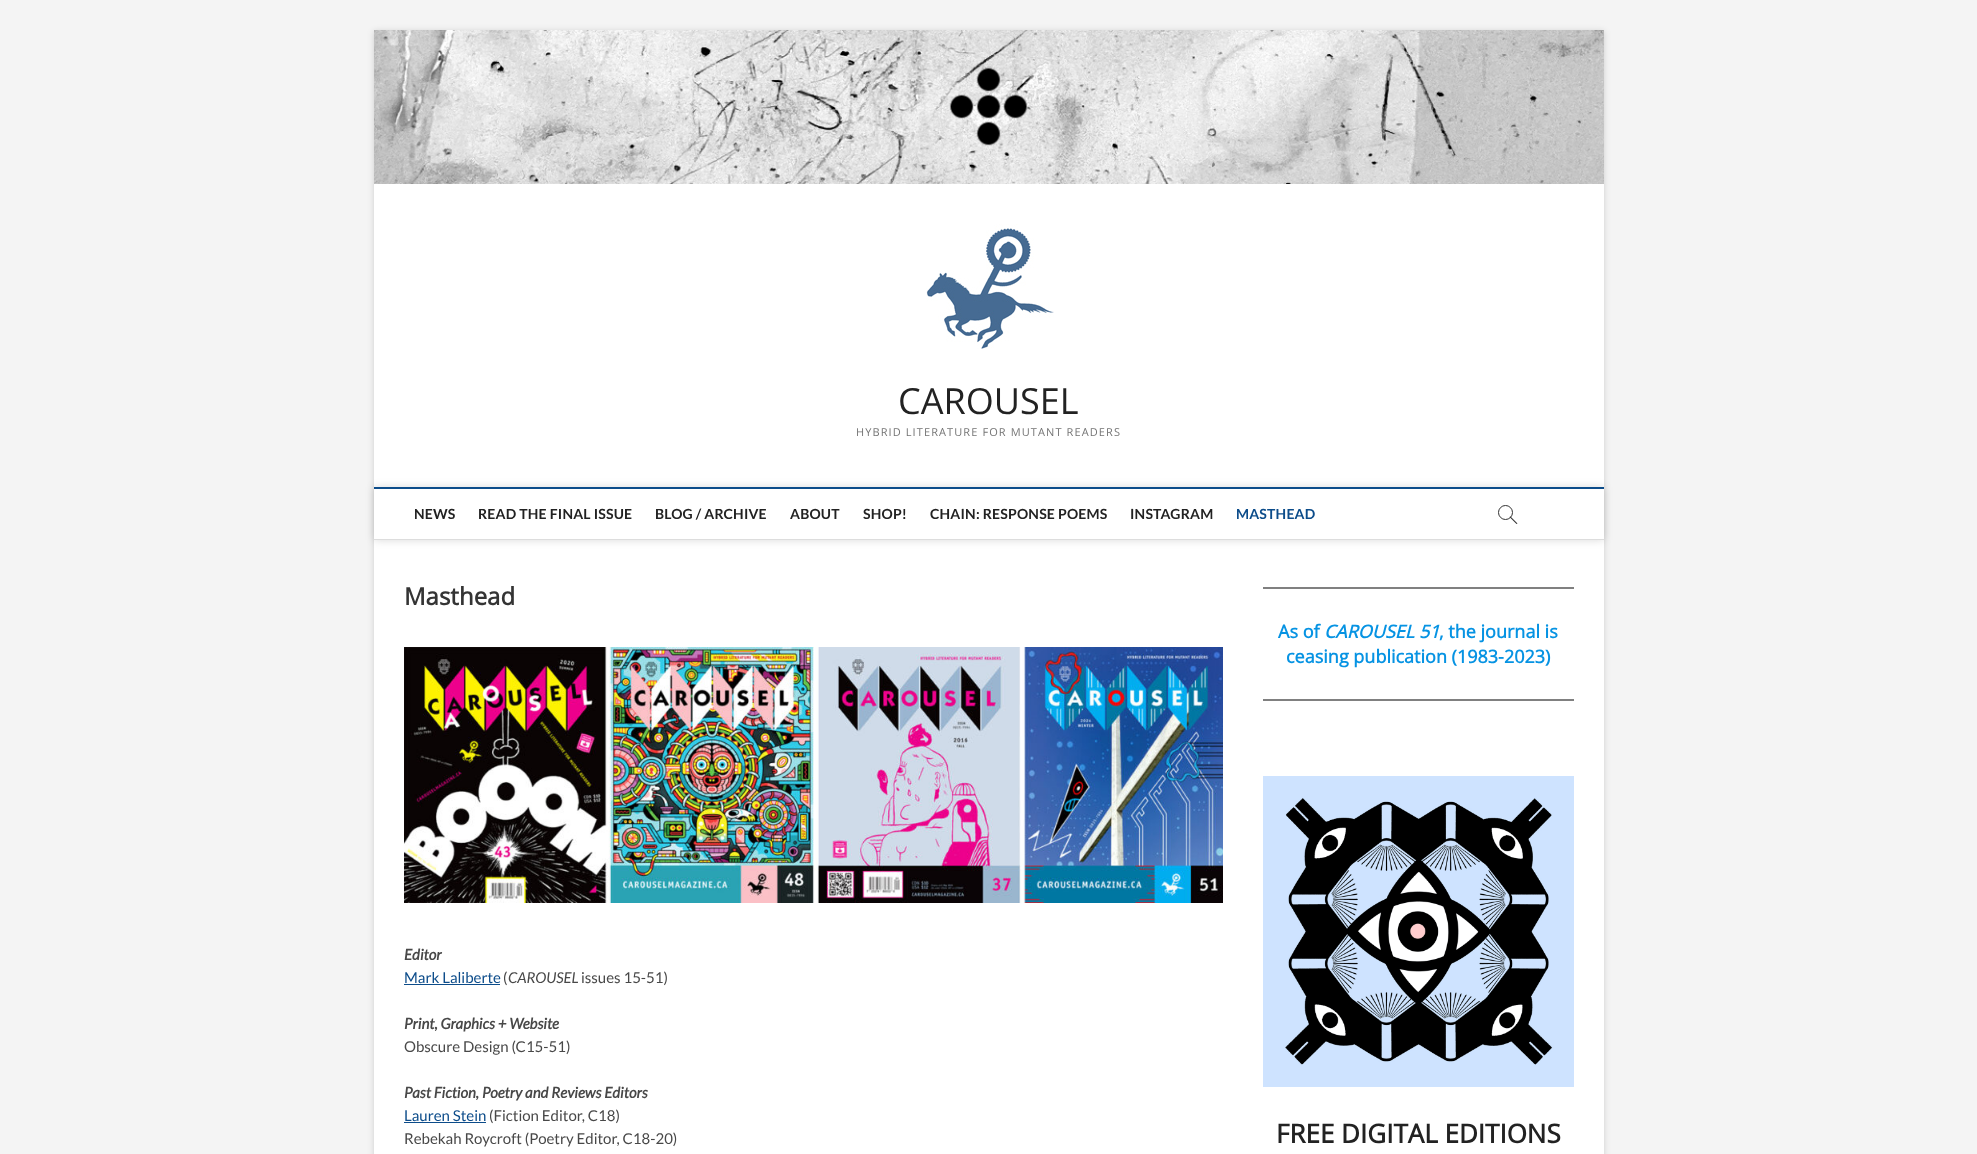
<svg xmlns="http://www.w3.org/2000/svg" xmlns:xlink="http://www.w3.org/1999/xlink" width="1977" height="1154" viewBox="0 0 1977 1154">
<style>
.cls-1{font:36px Open Sans;fill:#222222}
.cls-2{font:11px Open Sans;letter-spacing:1.1px;fill:#747474}
.cls-3{font:bold 14px Lato;letter-spacing:0.2px;fill:#222222}
.cls-4{font:bold 14px Lato;letter-spacing:0.2px;fill:#0c4c8a}
.cls-5{font:bold 24px Open Sans;fill:#343434}
.cls-6{font:italic bold 15px Lato;fill:#484848}
.cls-7{font:15px Lato;fill:#0c4c8a}
.cls-8{font:15px Lato;fill:#484848}
.cls-9{font:italic 15px Lato;fill:#484848}
.cls-10{font:bold 18px Open Sans;fill:#0693e3}
.cls-11{font:italic bold 18px Open Sans;fill:#0693e3}
.cls-12{font:bold 26px Open Sans;fill:#222222}
</style>
<defs>
<clipPath id="clip1"><path d="M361 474H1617V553H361ZM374 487H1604V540H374Z" clip-rule="evenodd"/></clipPath>
</defs>
<rect width="100%" height="100%" fill="#f4f4f4"/>
<rect fill="#000000" fill-opacity="0.15" filter="blur(3px)" x="374" y="31" width="1230" height="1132"/>
<rect fill="#ffffff" x="374" y="184" width="1230" height="970"/>
<image xlink:href="image0.png" x="374" y="30" width="1230" height="154"/>
<image xlink:href="image1.png" x="926" y="224" width="128" height="125"/>
<g clip-path="url(#clip1)">
<rect fill="#000000" fill-opacity="0.15" filter="blur(4px)" x="374" y="487" width="1230" height="53"/>
</g>
<rect fill="#0c4c8a" x="374" y="487" width="1230" height="2"/>
<rect fill="#dddddd" x="374" y="539" width="1230" height="1"/>
<circle fill="none" stroke="#333333" cx="1505.5" cy="512.5" r="7"/>
<path fill="#333333" d="M1509.5 517L1510.5 516.5L1517.5 523.5L1516.5 524Z"/>
<image xlink:href="image2.png" x="404" y="647" width="819" height="256"/>
<rect fill="#0c4c8a" x="404" y="984" width="96" height="1"/>
<rect fill="#0c4c8a" x="404" y="1122" width="82" height="1"/>
<rect fill="#808080" x="1263" y="587" width="311" height="2"/>
<rect fill="#808080" x="1263" y="699" width="311" height="2"/>
<image xlink:href="image3.png" x="1263" y="776" width="311" height="311"/>
<text class="cls-1" x="898" y="414">CAROUSEL</text>
<text class="cls-2" x="856" y="436">HYBRID LITERATURE FOR MUTANT READERS</text>
<text class="cls-3" x="414" y="519">NEWS</text>
<text class="cls-3" x="478" y="519">READ THE FINAL ISSUE</text>
<text class="cls-3" x="655" y="519">BLOG / ARCHIVE</text>
<text class="cls-3" x="790" y="519">ABOUT</text>
<text class="cls-3" x="863" y="519">SHOP!</text>
<text class="cls-3" x="930" y="519">CHAIN: RESPONSE POEMS</text>
<text class="cls-3" x="1130" y="519">INSTAGRAM</text>
<text class="cls-4" x="1236" y="519">MASTHEAD</text>
<text class="cls-5" x="404" y="605">Masthead</text>
<text class="cls-6" x="404" y="960">Editor</text>
<text class="cls-7" x="404" y="983">Mark Laliberte</text>
<text class="cls-8" x="503" y="983">(</text>
<text class="cls-9" x="508" y="983">CAROUSEL</text>
<text class="cls-8" x="581" y="983">issues 15-51)</text>
<text class="cls-6" x="404" y="1029">Print, Graphics + Website</text>
<text class="cls-8" x="404" y="1052">Obscure Design (C15-51)</text>
<text class="cls-6" x="404" y="1098">Past Fiction, Poetry and Reviews Editors</text>
<text class="cls-7" x="404" y="1121">Lauren Stein</text>
<text class="cls-8" x="489" y="1121">(Fiction Editor, C18)</text>
<text class="cls-8" x="404" y="1144">Rebekah Roycroft (Poetry Editor, C18-20)</text>
<text class="cls-10" x="1278" y="638">As of</text>
<text class="cls-11" x="1324" y="638">CAROUSEL 51</text>
<text class="cls-10" x="1439" y="638">, the journal is</text>
<text class="cls-10" x="1286" y="663">ceasing publication (1983-2023)</text>
<text class="cls-12" x="1276" y="1143">FREE DIGITAL EDITIONS</text>
</svg>
